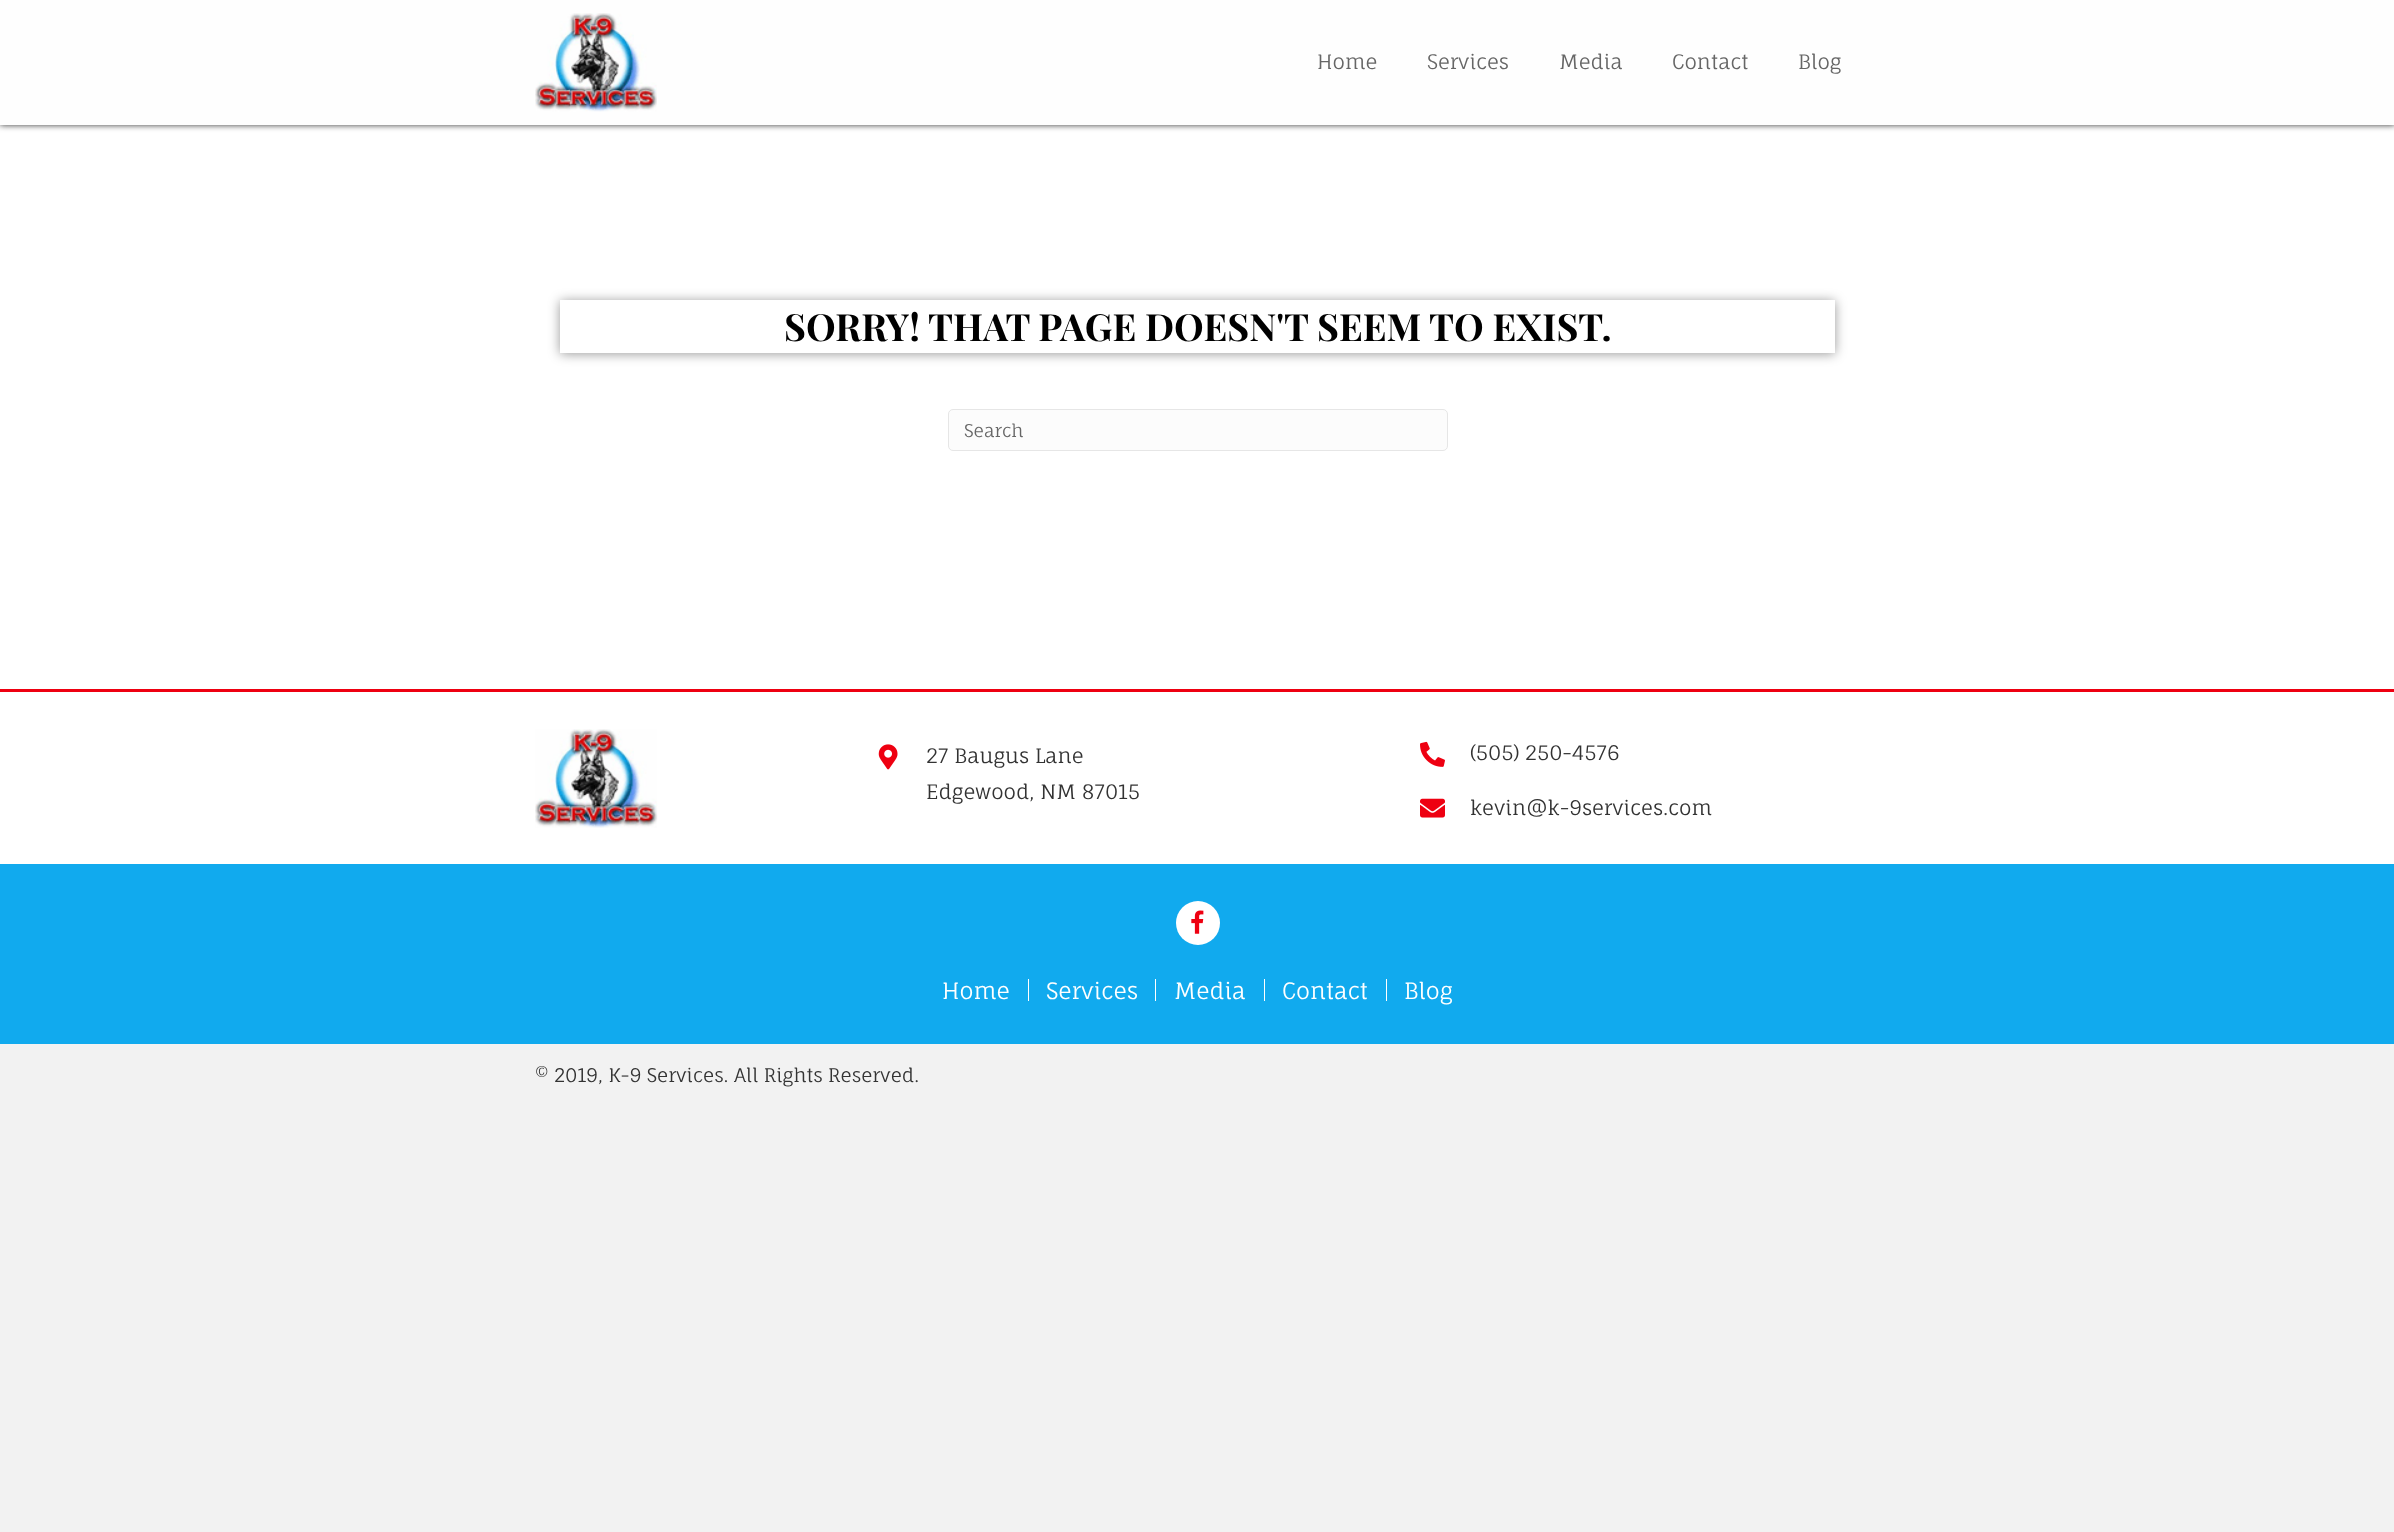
<svg xmlns="http://www.w3.org/2000/svg" xmlns:xlink="http://www.w3.org/1999/xlink" width="2394" height="1532" viewBox="0 0 2394 1532">
<style>
.cls-1{font:20px Fauna One;fill:#666666}
.cls-2{font:bold 37.5px Playfair Display;fill:#000000}
.cls-3{font:17.5px Fauna One;fill:#666666}
.cls-4{font:20px Fauna One;fill:#333333}
.cls-5{font:22.5px Fauna One;fill:#ffffff}
.cls-6{font:18.75px Fauna One;fill:#333333}
</style>
<defs>
<clipPath id="clip1"><path d="M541 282H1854V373H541ZM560 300H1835V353H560Z" clip-rule="evenodd"/></clipPath>
</defs>
<rect width="100%" height="100%" fill="#f2f2f2"/>
<rect fill="#ffffff" x="0" y="125" width="2394" height="564"/>
<rect fill="#333333" filter="blur(3px)" x="0" y="0" width="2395" height="125"/>
<rect fill="#fefefe" x="0" y="0" width="2394" height="125"/>
<image xlink:href="image0.png" x="535" y="13" width="122" height="99"/>
<g clip-path="url(#clip1)">
<rect fill="#000000" fill-opacity="0.4" filter="blur(6px)" x="560" y="301" width="1275" height="53"/>
</g>
<rect fill="#fcfcfc" stroke="#e6e6e6" x="948.5" y="409.5" width="499" height="41" rx="4.5"/>
<rect fill="#ffffff" x="0" y="692" width="2394" height="172"/>
<rect fill="#ee0011" x="0" y="689" width="2394" height="3"/>
<image xlink:href="image1.png" x="535" y="729" width="123" height="99"/>
<image xlink:href="image2.png" x="878" y="744" width="20" height="26"/>
<image xlink:href="image3.png" x="1420" y="741" width="25" height="26"/>
<image xlink:href="image4.png" x="1420" y="798" width="25" height="20"/>
<rect fill="#11aaee" x="0" y="864" width="2394" height="180"/>
<circle fill="#ffffff" cx="1198" cy="923" r="22"/>
<image xlink:href="image5.png" x="1191" y="910" width="13" height="24"/>
<rect fill="#ffffff" x="1028" y="979" width="1" height="22"/>
<rect fill="#ffffff" x="1155" y="979" width="1" height="22"/>
<rect fill="#ffffff" x="1264" y="979" width="1" height="22"/>
<rect fill="#ffffff" x="1386" y="979" width="1" height="22"/>
<text class="cls-1" x="1317" y="69">Home</text>
<text class="cls-1" x="1427" y="69">Services</text>
<text class="cls-1" x="1559" y="69">Media</text>
<text class="cls-1" x="1672" y="69">Contact</text>
<text class="cls-1" x="1798" y="69">Blog</text>
<text class="cls-2" x="784" y="341">SORRY! THAT PAGE DOESN'T SEEM TO EXIST.</text>
<text class="cls-3" x="964" y="437">Search</text>
<text class="cls-4"><tspan x="926" y="763">27 Baugus Lane</tspan><tspan x="926" y="799">Edgewood, NM 87015</tspan></text>
<text class="cls-4" x="1470" y="760">(505) 250-4576</text>
<text class="cls-4" x="1470" y="815">kevin@k-9services.com</text>
<text class="cls-5" x="942" y="999">Home</text>
<text class="cls-5" x="1046" y="999">Services</text>
<text class="cls-5" x="1174" y="999">Media</text>
<text class="cls-5" x="1282" y="999">Contact</text>
<text class="cls-5" x="1404" y="999">Blog</text>
<text class="cls-6" x="535" y="1082">© 2019, K-9 Services. All Rights Reserved.</text>
</svg>
